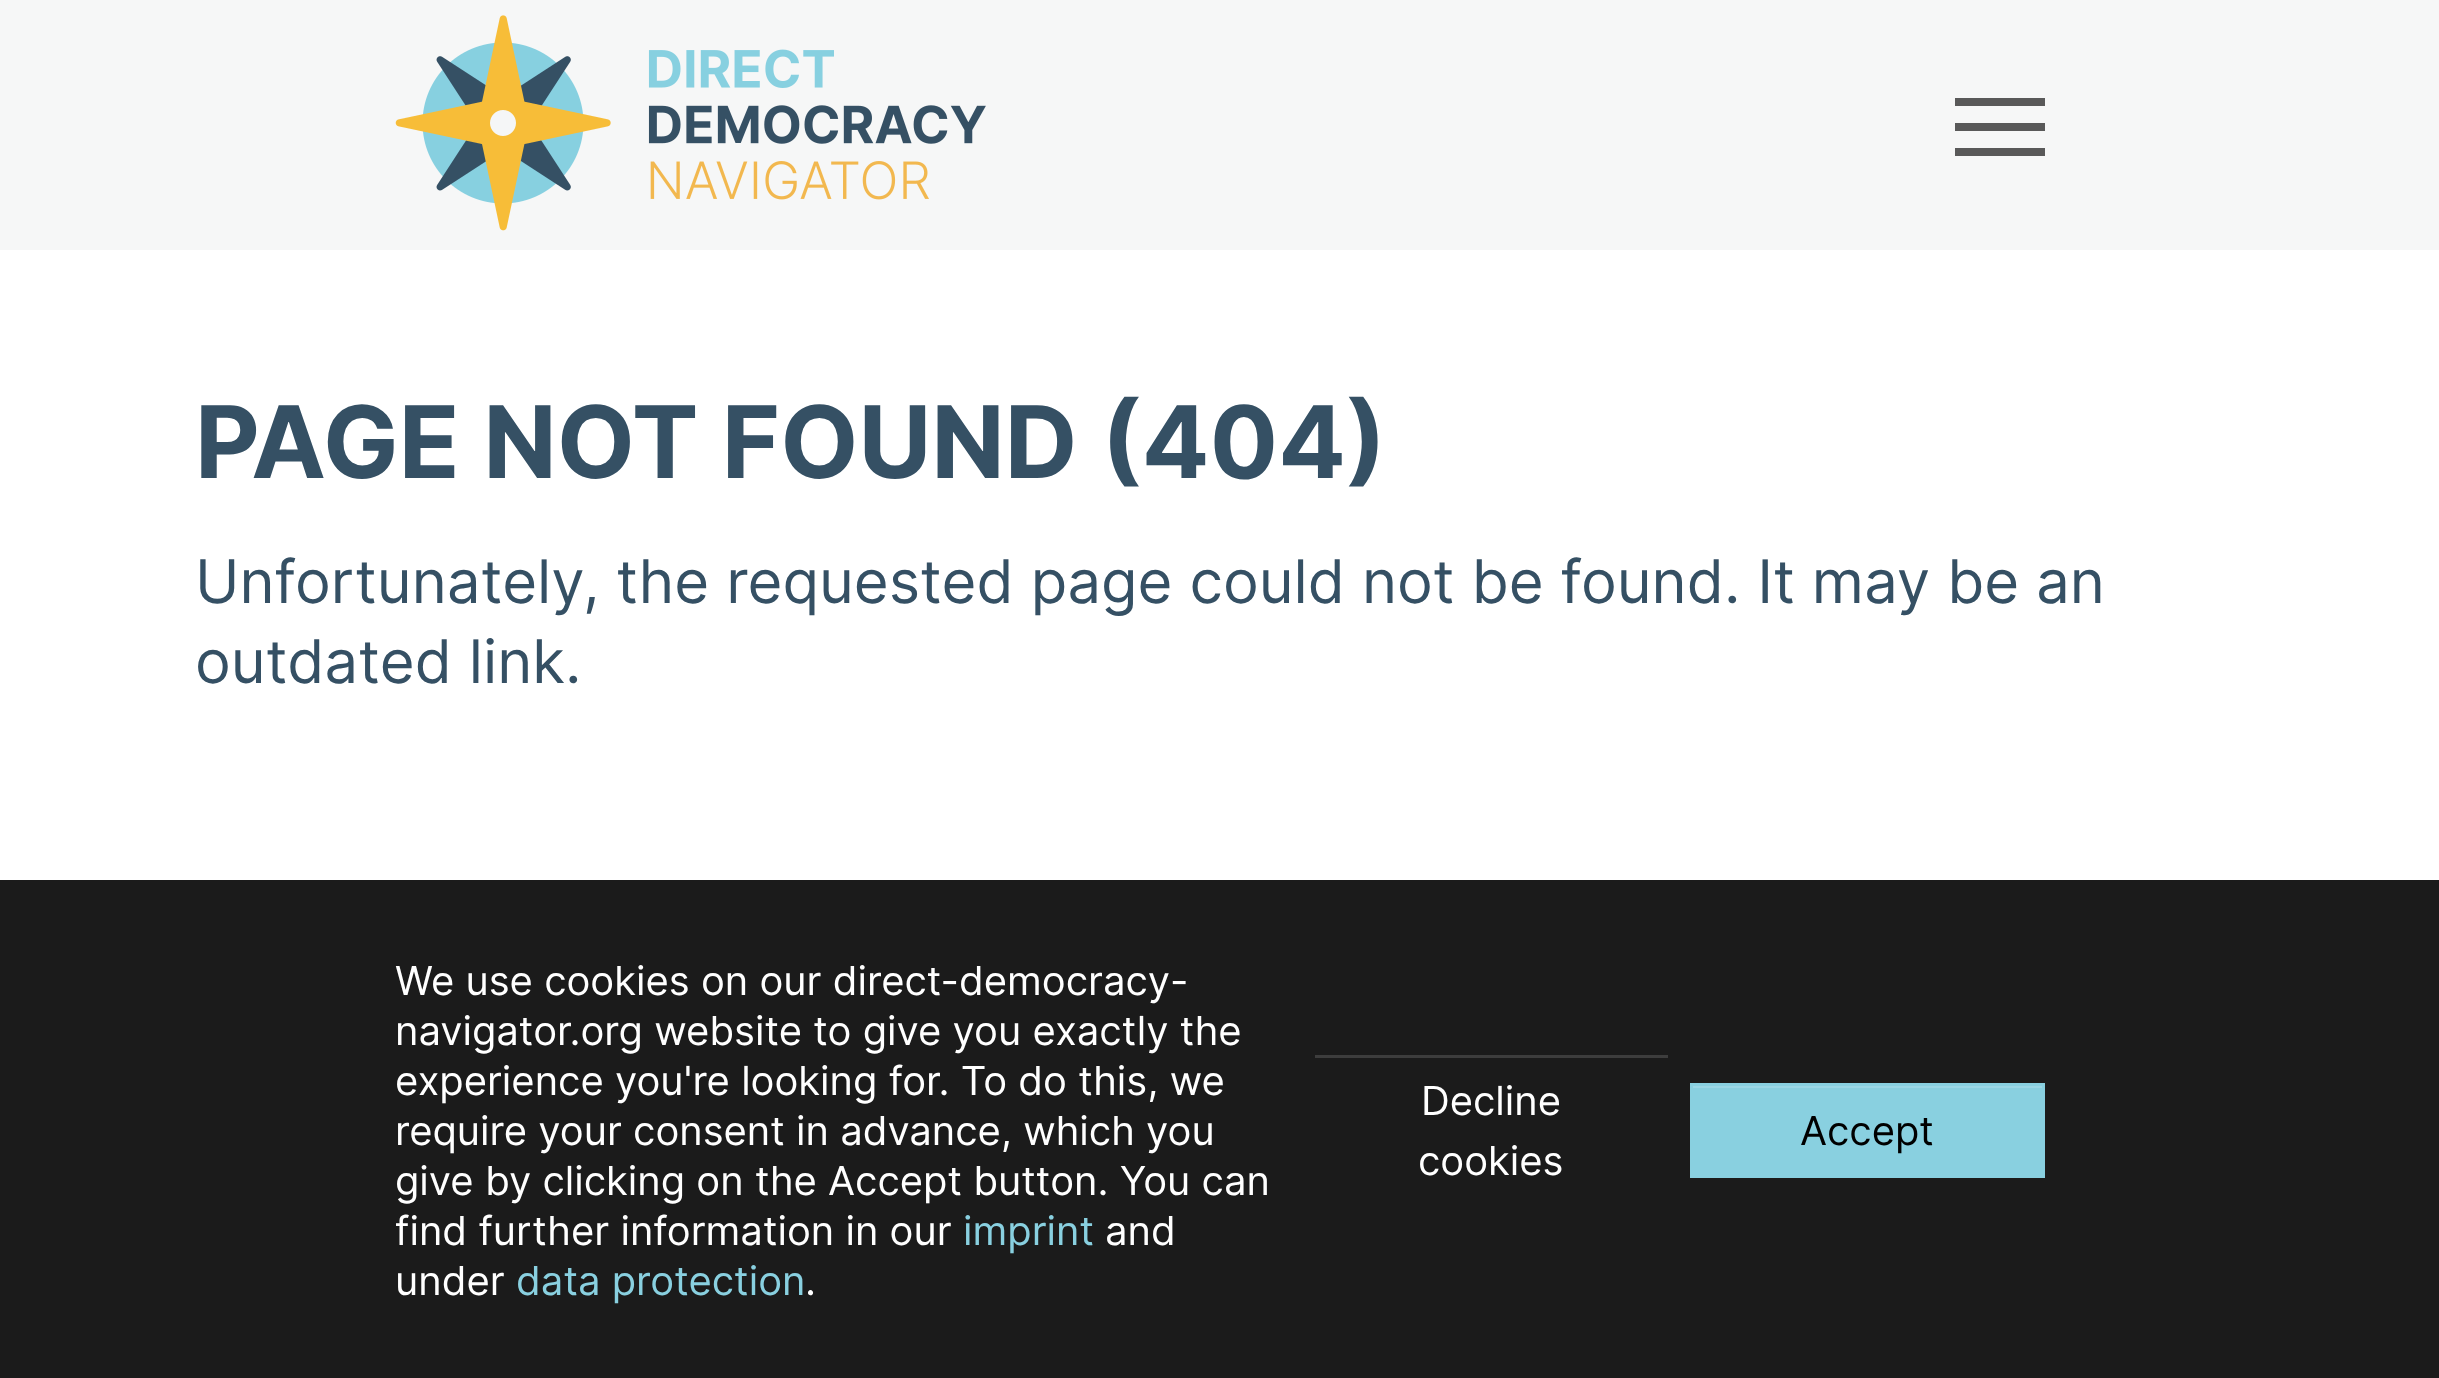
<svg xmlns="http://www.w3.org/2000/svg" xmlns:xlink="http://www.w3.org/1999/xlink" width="2439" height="1378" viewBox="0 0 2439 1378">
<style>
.cls-1{font:bold 100px Inter;fill:#355064}
.cls-2{font:60px Inter;fill:#355064}
.cls-3{font:40px Inter;fill:#ffffff}
.cls-4{font:40px Inter;fill:#89d0e0}
.cls-5{font:40px Inter;fill:#000000}
</style>
<rect width="100%" height="100%" fill="#ffffff"/>
<rect fill="#f6f7f7" x="0" y="0" width="2439" height="250"/>
<image xlink:href="image0.png" x="395" y="15" width="591" height="216"/>
<rect fill="#595959" x="1955" y="123" width="90" height="8"/>
<rect fill="#595959" x="1955" y="98" width="90" height="8"/>
<rect fill="#595959" x="1955" y="148" width="90" height="8"/>
<rect fill="#1b1b1b" x="0" y="880" width="2439" height="498"/>
<rect fill="#3d3d3d" x="1315" y="1055" width="353" height="3"/>
<rect fill="#89d0e0" x="1693" y="1088" width="349" height="87"/>
<rect fill="#9bd7e5" x="1693" y="1086" width="350" height="2"/>
<rect fill="none" stroke="#89d0e0" stroke-width="3" x="1691.5" y="1084.5" width="352" height="92"/>
<text class="cls-1" x="195" y="478">PAGE NOT FOUND (404)</text>
<text class="cls-2"><tspan x="195" y="603">Unfortunately, the requested page could not be found. It may be an</tspan><tspan x="195" y="683">outdated link.</tspan></text>
<text class="cls-3"><tspan x="395" y="995">We use cookies on our direct-democracy-</tspan><tspan x="395" y="1045">navigator.org website to give you exactly the</tspan><tspan x="395" y="1095">experience you're looking for. To do this, we</tspan><tspan x="395" y="1145">require your consent in advance, which you</tspan><tspan x="395" y="1195">give by clicking on the Accept button. You can</tspan><tspan x="395" y="1245">find further information in our</tspan></text>
<text class="cls-4" x="963" y="1245">imprint</text>
<text class="cls-3" x="1105" y="1245">and</text>
<text class="cls-3" x="395" y="1295">under</text>
<text class="cls-4" x="516" y="1295">data protection</text>
<text class="cls-3" x="805" y="1295">.</text>
<text class="cls-3" x="1421" y="1115">Decline</text>
<text class="cls-3" x="1418" y="1175">cookies</text>
<text class="cls-5" x="1800" y="1145">Accept</text>
</svg>
